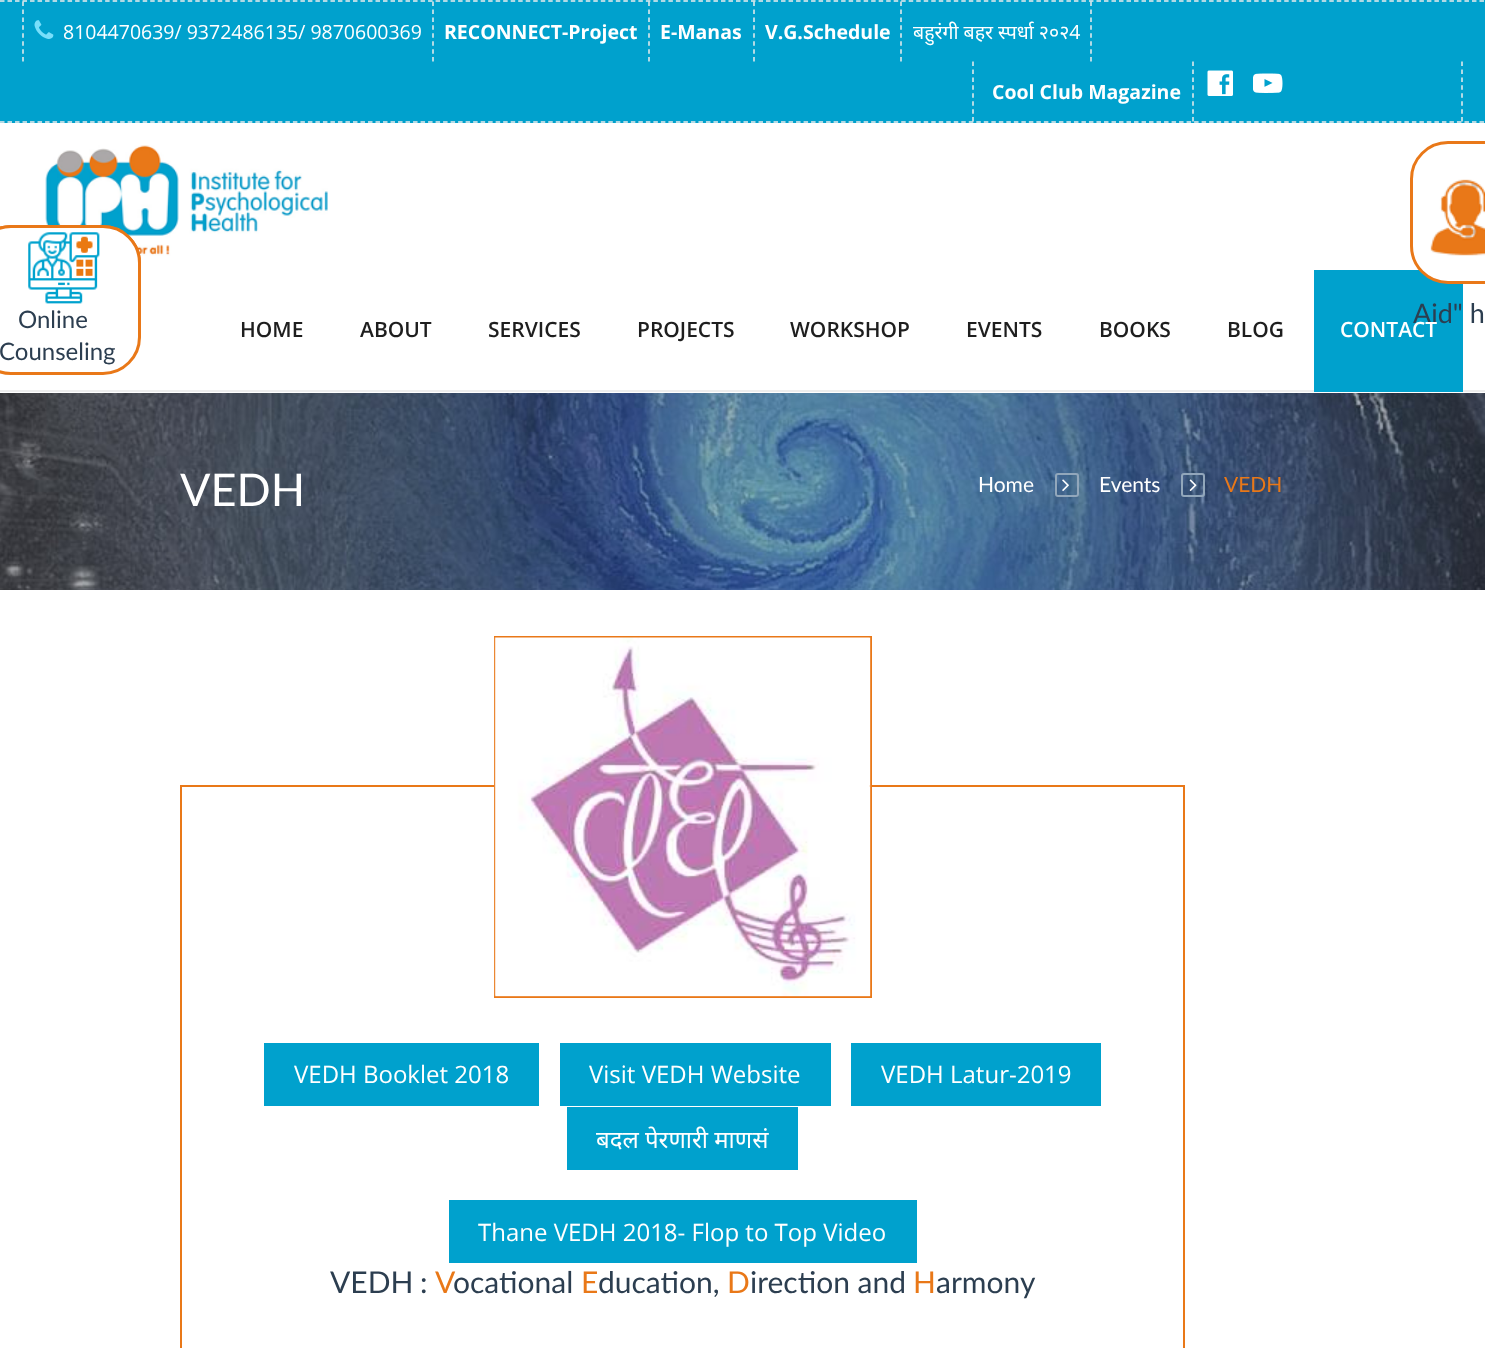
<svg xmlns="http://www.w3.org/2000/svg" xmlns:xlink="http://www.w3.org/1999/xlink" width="1485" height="1348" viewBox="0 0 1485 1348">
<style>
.cls-1{font:19.5px Open Sans;fill:#ffffff}
.cls-2{font:bold 19.5px Open Sans;fill:#ffffff}
.cls-3{font:19.5px Noto Sans;fill:#ffffff}
.cls-4{font:27px Lato;fill:#2c3e50}
.cls-5{font:24px Lato;fill:#2c3e50}
.cls-6{font:600 21px Open Sans;fill:#1e1e1e}
.cls-7{font:600 21px Open Sans;fill:#ffffff}
.cls-8{font:45px Lato;fill:#ffffff}
.cls-9{font:21px Lato;fill:#ffffff}
.cls-10{font:21px Lato;fill:#e97818}
.cls-11{font:24px Open Sans;fill:#ffffff}
.cls-12{font:24px Noto Sans;fill:#ffffff}
.cls-13{font:30px Lato;fill:#2c3e50}
.cls-14{font:30px Lato;fill:#e97818}
</style>
<rect width="100%" height="100%" fill="#ffffff"/>
<rect fill="#00a1cd" x="0" y="0" width="1485" height="123"/>
<path fill="none" stroke="#ededed" stroke-width="1.5" stroke-dasharray="4.5 3.01" d="M0 1H1485"/>
<path fill="none" stroke="#ededed" stroke-width="1.5" stroke-dasharray="4.5 3.01" d="M0 122H1485"/>
<path fill="none" stroke="#ededed" stroke-width="1.5" stroke-dasharray="4.5 3.44" d="M23 1.5V61.5"/>
<image xlink:href="image0.png" x="34" y="20" width="20" height="19"/>
<path fill="none" stroke="#ededed" stroke-width="1.5" stroke-dasharray="4.5 3.44" d="M433 1.5V61.5"/>
<path fill="none" stroke="#ededed" stroke-width="1.5" stroke-dasharray="4.5 3.44" d="M649 1.5V61.5"/>
<path fill="none" stroke="#ededed" stroke-width="1.5" stroke-dasharray="4.5 3.44" d="M754 1.5V61.5"/>
<path fill="none" stroke="#ededed" stroke-width="1.5" stroke-dasharray="4.5 3.44" d="M1091 1.5V61.5"/>
<path fill="none" stroke="#ededed" stroke-width="1.5" stroke-dasharray="4.5 3.44" d="M901 1.5V61.5"/>
<path fill="none" stroke="#ededed" stroke-width="1.5" stroke-dasharray="4.5 3.44" d="M1462 61.5V121.5"/>
<path fill="none" stroke="#ededed" stroke-width="1.5" stroke-dasharray="4.5 3.44" d="M973 61.5V121.5"/>
<path fill="none" stroke="#ededed" stroke-width="1.5" stroke-dasharray="4.5 3.44" d="M1193 61.5V121.5"/>
<image xlink:href="image1.png" x="1207" y="70" width="26" height="26"/>
<image xlink:href="image2.png" x="1253" y="73" width="30" height="20"/>
<image xlink:href="image6.png" x="45" y="145" width="283" height="111"/>
<rect fill="none" stroke="#e97818" stroke-width="3" x="-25.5" y="226.5" width="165" height="141" rx="36.5"/>
<image xlink:href="image3.png" x="117" y="228" width="2" height="1"/>
<rect fill="#ededed" x="0" y="390" width="1485" height="2"/>
<rect fill="#00a1cd" x="1314" y="270" width="149" height="122"/>
<rect fill="#ffffff" stroke="#e97818" stroke-width="3" x="1411.5" y="142.5" width="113" height="140" rx="36.5"/>
<image xlink:href="image4.png" x="1430" y="179" width="55" height="77"/>
<rect fill="#ffffff" stroke="#e97818" stroke-width="3" x="-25.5" y="226.5" width="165" height="147" rx="36.5"/>
<image xlink:href="image5.png" x="28" y="232" width="72" height="72"/>
<image xlink:href="image7.png" x="0" y="393" width="1485" height="197"/>
<rect fill="none" stroke="#92a7bb" stroke-width="2" x="1056" y="474" width="22" height="22" rx="2"/>
<image xlink:href="image8.png" x="1062" y="479" width="7" height="12"/>
<rect fill="none" stroke="#92a7bb" stroke-width="2" x="1182" y="474" width="22" height="22" rx="2"/>
<image xlink:href="image9.png" x="1189" y="479" width="8" height="12"/>
<rect fill="none" stroke="#e97818" stroke-width="2" x="181" y="786" width="1003" height="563"/>
<rect fill="none" stroke="#e97818" stroke-width="2" x="495" y="637" width="376" height="360"/>
<image xlink:href="image10.png" x="494" y="637" width="377" height="360"/>
<rect fill="#00a1cd" x="264" y="1043" width="275" height="63"/>
<rect fill="#00a1cd" x="560" y="1043" width="271" height="63"/>
<rect fill="#00a1cd" x="851" y="1043" width="250" height="63"/>
<rect fill="#00a1cd" x="567" y="1107" width="231" height="63"/>
<rect fill="#00a1cd" x="449" y="1200" width="468" height="63"/>
<text class="cls-1" x="63" y="39">8104470639/ 9372486135/ 9870600369</text>
<text class="cls-2" x="444" y="39">RECONNECT-Project</text>
<text class="cls-2" x="660" y="39">E-Manas</text>
<text class="cls-2" x="765" y="39">V.G.Schedule</text>
<text class="cls-3" x="913" y="39">बहुरंगी बहर स्पर्धा २०२4</text>
<text class="cls-2" x="992" y="99">Cool Club Magazine</text>
<text class="cls-4" x="1413" y="323">Aid" h</text>
<text class="cls-5" x="18" y="328">Online</text>
<text class="cls-5" x="-1" y="360">Counseling</text>
<text class="cls-6" x="240" y="337">HOME</text>
<text class="cls-6" x="360" y="337">ABOUT</text>
<text class="cls-6" x="488" y="337">SERVICES</text>
<text class="cls-6" x="637" y="337">PROJECTS</text>
<text class="cls-6" x="790" y="337">WORKSHOP</text>
<text class="cls-6" x="966" y="337">EVENTS</text>
<text class="cls-6" x="1099" y="337">BOOKS</text>
<text class="cls-6" x="1227" y="337">BLOG</text>
<text class="cls-7" x="1340" y="337">CONTACT</text>
<text class="cls-8" x="180" y="506">VEDH</text>
<text class="cls-9" x="978" y="492">Home</text>
<text class="cls-9" x="1099" y="492">Events</text>
<text class="cls-10" x="1224" y="492">VEDH</text>
<text class="cls-11" x="294" y="1083">VEDH Booklet 2018</text>
<text class="cls-11" x="589" y="1083">Visit VEDH Website</text>
<text class="cls-11" x="881" y="1083">VEDH Latur-2019</text>
<text class="cls-12" x="596" y="1148">बदल पेरणारी माणसं</text>
<text class="cls-11" x="478" y="1241">Thane VEDH 2018- Flop to Top Video</text>
<text class="cls-13" x="330" y="1293" word-spacing="-1">VEDH :</text>
<text class="cls-14" x="435" y="1293">V</text>
<text class="cls-13" x="453" y="1293">ocational</text>
<text class="cls-14" x="581" y="1293">E</text>
<text class="cls-13" x="598" y="1293">ducation,</text>
<text class="cls-14" x="727" y="1293">D</text>
<text class="cls-13" x="750" y="1293">irection and</text>
<text class="cls-14" x="913" y="1293">H</text>
<text class="cls-13" x="936" y="1293">armony</text>
</svg>
